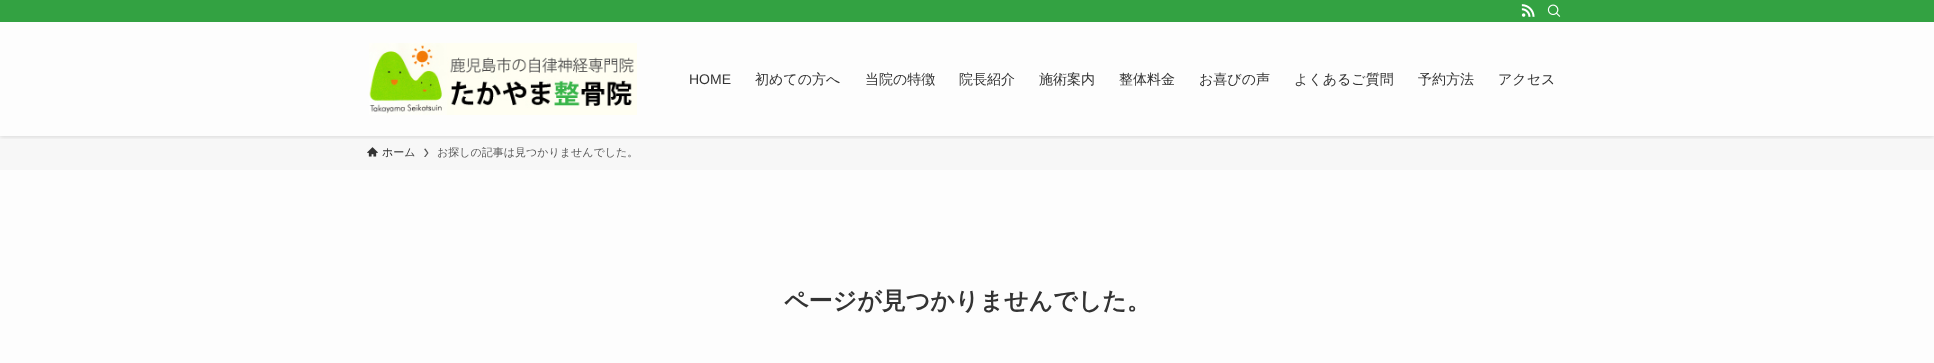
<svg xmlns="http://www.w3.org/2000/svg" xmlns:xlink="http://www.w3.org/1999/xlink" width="1934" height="363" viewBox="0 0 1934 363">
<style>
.cls-1{font:14px Liberation Sans;fill:#333333}
.cls-2{font:500 14px WenQuanYi Zen Hei;fill:#333333}
.cls-3{font:500 11px WenQuanYi Zen Hei;fill:#333333}
.cls-4{font:500 11px WenQuanYi Zen Hei;fill:#5a5a5a}
.cls-5{font:bold 24px WenQuanYi Zen Hei;fill:#333333}
</style>
<defs>
<clipPath id="clip1"><rect x="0" y="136" width="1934" height="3"/></clipPath>
</defs>
<rect width="100%" height="100%" fill="#fdfdfd"/>
<rect fill="#f7f7f7" x="0" y="136" width="1934" height="34"/>
<g clip-path="url(#clip1)">
<rect fill="#000000" fill-opacity="0.12" filter="blur(2px)" x="0" y="1" width="1934" height="136"/>
</g>
<rect fill="#33a242" x="0" y="0" width="1934" height="22"/>
<image xlink:href="image0.png" x="1521" y="4" width="14" height="13"/>
<image xlink:href="image1.png" x="1547" y="4" width="14" height="13"/>
<image xlink:href="image2.png" x="369" y="43" width="268" height="72"/>
<image xlink:href="image3.png" x="367" y="147" width="11" height="10"/>
<path fill="#5a5a5a" d="M425.5 148.5L424 149L427 153L424 157H425.5L428.5 153Z"/>
<text class="cls-1" x="689" y="84">HOME</text>
<text class="cls-2" x="755" y="84">初めての方へ</text>
<text class="cls-2" x="865" y="84">当院の特徴</text>
<text class="cls-2" x="959" y="84">院長紹介</text>
<text class="cls-2" x="1039" y="84">施術案内</text>
<text class="cls-2" x="1119" y="84">整体料金</text>
<text class="cls-2" x="1199" y="84">お喜びの声</text>
<text class="cls-2" x="1294" y="84">よくあるご質問</text>
<text class="cls-2" x="1418" y="84">予約方法</text>
<text class="cls-2" x="1498" y="84">アクセス</text>
<text class="cls-3" x="382" y="156">ホーム</text>
<text class="cls-4" x="437" y="156">お探しの記事は見つかりませんでした。</text>
<text class="cls-5" x="784" y="309">ページが見つかりませんでした。</text>
</svg>
